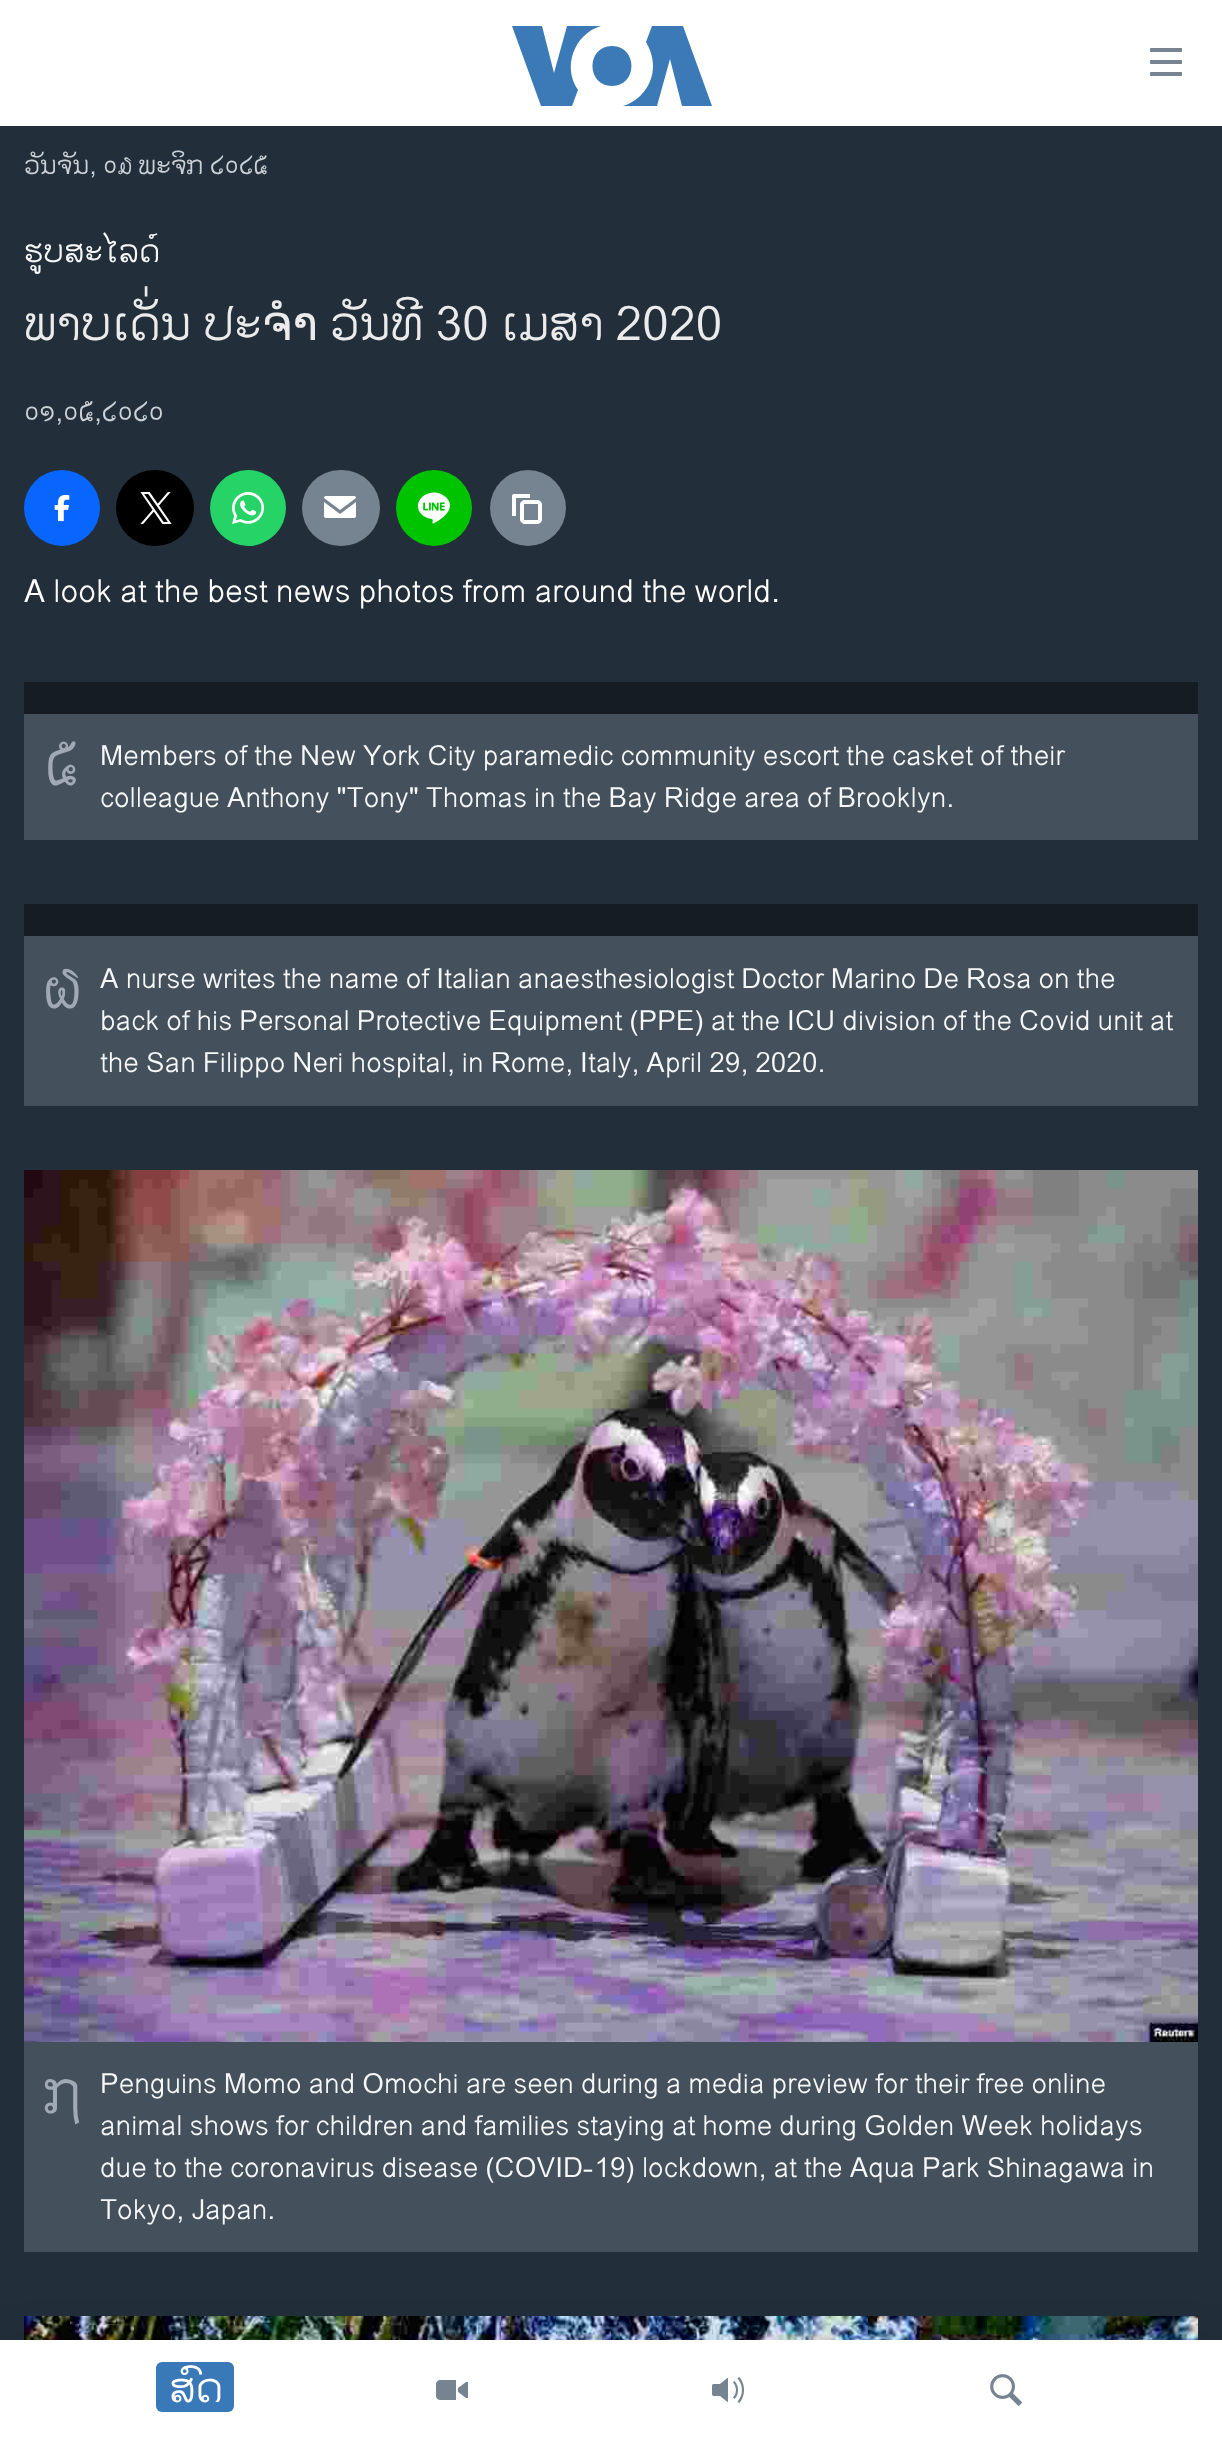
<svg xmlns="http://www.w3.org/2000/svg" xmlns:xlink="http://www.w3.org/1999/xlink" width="1222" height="2440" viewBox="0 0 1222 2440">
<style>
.cls-1{font:26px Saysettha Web;fill:#cbd1d6}
.cls-2{font:32px Saysettha Web;fill:#f6f7f8}
.cls-3{font:48px Saysettha Web;fill:#ebebeb}
.cls-4{font:28px Saysettha Web;fill:#cbd1d6}
.cls-5{font:32px Saysettha Web;fill:#ffffff}
.cls-6{font:61px Saysettha Web;fill:#a1aab4}
.cls-7{font:28px Saysettha Web;fill:#f6f7f8}
.cls-8{font:42px Saysettha Web;fill:#ffffff}
</style>
<rect width="100%" height="100%" fill="#ffffff"/>
<rect fill="#222f3a" x="0" y="126" width="1222" height="2214"/>
<circle fill="#0866ff" cx="62" cy="508" r="38"/>
<image xlink:href="image0.png" x="54" y="494" width="16" height="28"/>
<rect fill="#000000" x="116" y="470" width="78" height="76" rx="38"/>
<image xlink:href="image1.png" x="140" y="492" width="32" height="32"/>
<circle fill="#25d366" cx="248" cy="508" r="38"/>
<image xlink:href="image2.png" x="232" y="492" width="32" height="32"/>
<rect fill="#768492" x="302" y="470" width="78" height="76" rx="38"/>
<image xlink:href="image3.png" x="324" y="496" width="32" height="22"/>
<circle fill="#00c300" cx="434" cy="508" r="38"/>
<image xlink:href="image4.png" x="418" y="492" width="32" height="32"/>
<circle fill="#768492" cx="528" cy="508" r="38"/>
<image xlink:href="image5.png" x="512" y="494" width="30" height="30"/>
<rect fill="#151d23" x="24" y="682" width="1174" height="32"/>
<rect fill="#44505b" x="24" y="714" width="1174" height="126"/>
<rect fill="#151d23" x="24" y="904" width="1174" height="32"/>
<rect fill="#44505b" x="24" y="936" width="1174" height="170"/>
<image xlink:href="image6.png" x="24" y="1170" width="1174" height="872"/>
<rect fill="#44505b" x="24" y="2042" width="1174" height="210"/>
<image xlink:href="image7.png" x="24" y="2316" width="1174" height="24"/>
<path fill="#3b79b7" d="M578 90L572 106H541L512 26H542L554 73L567 26H601C574 34 562 67 578 90ZM612 46C586 46 586 86 612 86C638 86 638 46 612 46ZM653 66C653 85 640 101 623 106H657L670 59L682 106H712L683 26H652L646 42C650 49 653 57 653 66Z"/>
<image xlink:href="image8.png" x="1150" y="48" width="32" height="28"/>
<rect fill="#000000" fill-opacity="0.1" filter="blur(20px)" x="0" y="2340" width="1222" height="100"/>
<rect fill="#ffffff" x="0" y="2340" width="1222" height="100"/>
<rect fill="#3a79b7" x="156" y="2362" width="78" height="50" rx="6"/>
<image xlink:href="image9.png" x="436" y="2380" width="32" height="20"/>
<image xlink:href="image10.png" x="712" y="2377" width="32" height="26"/>
<image xlink:href="image11.png" x="990" y="2374" width="32" height="32"/>
<text class="cls-1" x="24" y="174">ວັນຈັນ, ໐໓ ພະຈິກ ໒໐໒໕</text>
<text class="cls-2" x="24" y="262">ຮູບສະໄລດ໌</text>
<text class="cls-3" x="24" y="340">ພາບເດັ່ນ ປະຈຳ ວັນທີ 30 ເມສາ 2020</text>
<text class="cls-4" x="24" y="421">໐໑,໐໕,໒໐໒໐</text>
<text class="cls-5" x="24" y="602">A look at the best news photos from around the world.</text>
<text class="cls-6" x="45" y="785">໕</text>
<text class="cls-7"><tspan x="100" y="765">Members of the New York City paramedic community escort the casket of their</tspan><tspan x="100" y="807">colleague Anthony "Tony" Thomas in the Bay Ridge area of Brooklyn.</tspan></text>
<text class="cls-6" x="45" y="1008">໖</text>
<text class="cls-7"><tspan x="100" y="988">A nurse writes the name of Italian anaesthesiologist Doctor Marino De Rosa on the</tspan><tspan x="100" y="1030">back of his Personal Protective Equipment (PPE) at the ICU division of the Covid unit at</tspan><tspan x="100" y="1072">the San Filippo Neri hospital, in Rome, Italy, April 29, 2020.</tspan></text>
<text class="cls-6" x="45" y="2113">໗</text>
<text class="cls-7"><tspan x="100" y="2093">Penguins Momo and Omochi are seen during a media preview for their free online</tspan><tspan x="100" y="2135">animal shows for children and families staying at home during Golden Week holidays</tspan><tspan x="100" y="2177">due to the coronavirus disease (COVID-19) lockdown, at the Aqua Park Shinagawa in</tspan><tspan x="100" y="2219">Tokyo, Japan.</tspan></text>
<text class="cls-8" x="169" y="2402">ສົດ</text>
</svg>
